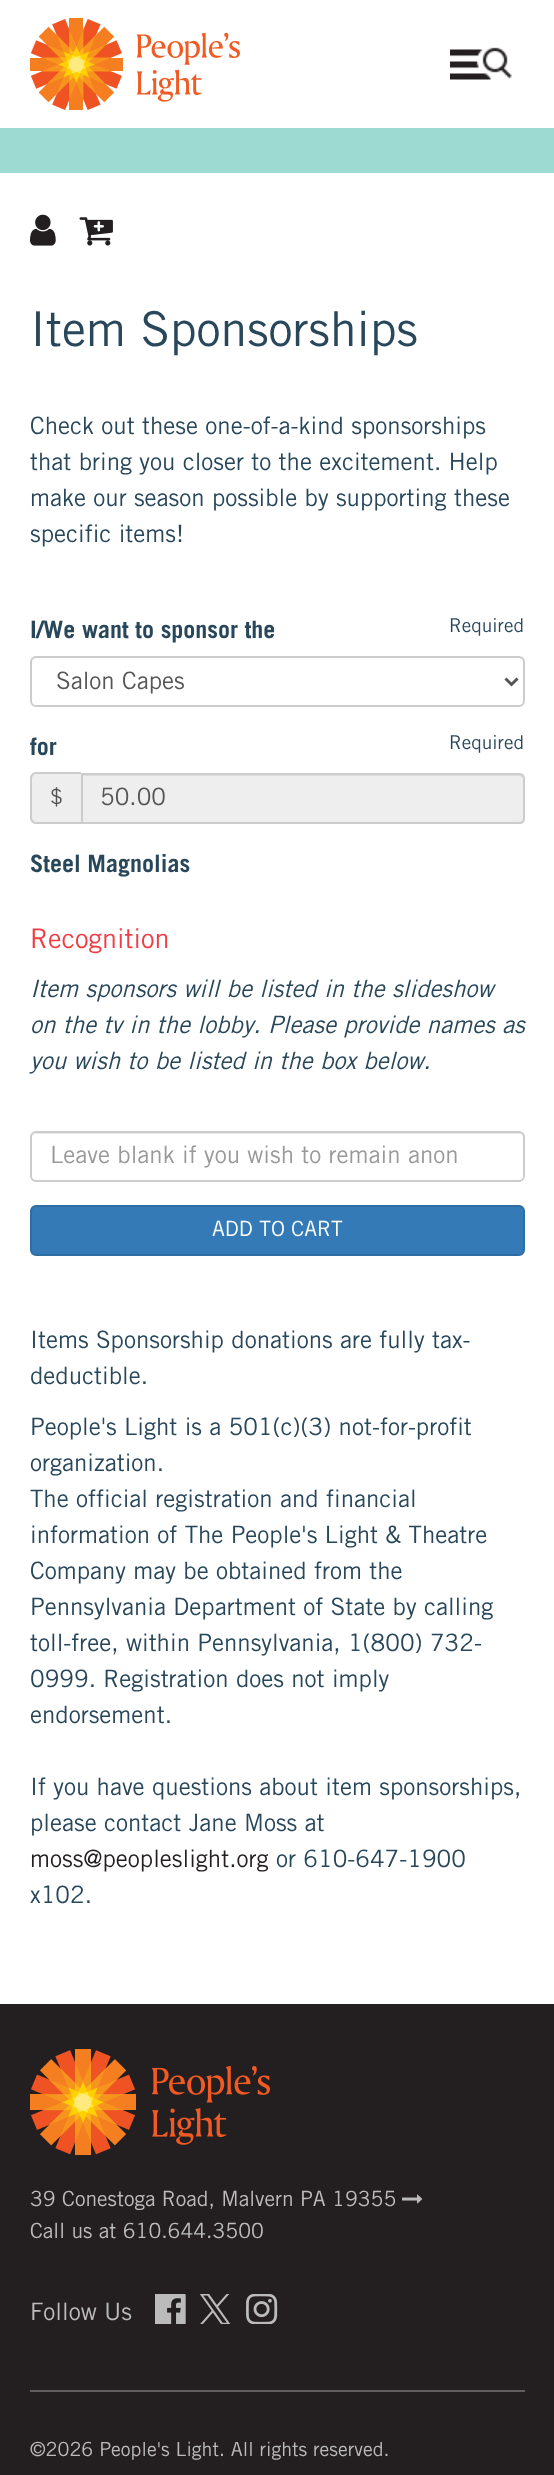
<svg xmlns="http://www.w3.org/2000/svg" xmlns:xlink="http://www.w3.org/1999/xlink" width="554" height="2475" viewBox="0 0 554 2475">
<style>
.cls-1{font:48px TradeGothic;fill:#28475a}
.cls-2{font:24px TradeGothic;fill:#28475a}
.cls-3{font:bold 24px TradeGothic;fill:#28475a}
.cls-4{font:19px TradeGothic;fill:#28475a}
.cls-5{font:24px TradeGothic;fill:#555555}
.cls-6{font:21px TradeGothic;fill:#555555}
.cls-7{font:27px TradeGothic;fill:#ee3d44}
.cls-8{font:italic 24px TradeGothic;fill:#28475a}
.cls-9{font:24px TradeGothic;fill:#999999}
.cls-10{font:21px TradeGothic;fill:#ffffff}
.cls-11{font:24px TradeGothic;fill:#231f20}
.cls-12{font:21px TradeGothic;fill:#bbbbbb}
.cls-13{font:24px TradeGothic;fill:#bbbbbb}
.cls-14{font:19.5px TradeGothic;fill:#bbbbbb}
</style>
<rect width="100%" height="100%" fill="#ffffff"/>
<image xlink:href="image0.png" x="30" y="18" width="210" height="92"/>
<image xlink:href="image1.png" x="450" y="47" width="62" height="33"/>
<rect fill="#9ddad2" x="0" y="128" width="554" height="45"/>
<image xlink:href="image2.png" x="30" y="214" width="26" height="32"/>
<image xlink:href="image3.png" x="79" y="217" width="34" height="29"/>
<path fill="#ececec" d="M36 658H519C521 658 524 661 524 663V662C524 659 522 657 519 657H37C34 657 32 659 32 662V663C32 661 34 658 36 658Z"/>
<rect fill="none" stroke="#cccccc" stroke-width="2" x="31" y="657" width="493" height="49" rx="5"/>
<path fill="none" stroke="#555555" stroke-width="3" d="M505.5 678.5L511.5 684.5L517.5 678.5"/>
<path fill="#eeeeee" d="M36 773H81V824H36C32.5 824 30 821.5 30 818V779C30 775.5 32.5 773 36 773Z"/>
<path fill="#cccccc" fill-rule="evenodd" d="M36 772H81V824H36C33 824 30 821 30 818V778C30 775 33 772 36 772ZM36 774H81V822H36C34 822 32 820 32 818V778C32 776 34 774 36 774Z"/>
<path fill="#eeeeee" d="M81 773H519C522.5 773 525 775.5 525 779V818C525 821.5 522.5 824 519 824H81Z"/>
<path fill="#dcdcdc" d="M83 774V776H519C521 776 524 778 524 780C524 777 522 774 519 774Z"/>
<path fill="none" stroke="#cccccc" stroke-width="2" d="M82 774H519C522 774 524 776 524 779V818C524 821 522 823 519 823H82Z"/>
<path fill="#ececec" d="M36 1134H519C521 1134 524 1136 524 1138C524 1135 522 1133 519 1133H37C34 1133 32 1135 32 1138C32 1136 34 1134 36 1134Z"/>
<rect fill="none" stroke="#cccccc" stroke-width="2" x="31" y="1132" width="493" height="49" rx="5"/>
<rect fill="#337ab7" stroke="#2e6da4" stroke-width="2" x="31" y="1206" width="493" height="49" rx="5"/>
<rect fill="#231f20" x="0" y="2004" width="554" height="471"/>
<image xlink:href="image4.png" x="30" y="2049" width="240" height="106"/>
<image xlink:href="image5.png" x="402" y="2194" width="21" height="10"/>
<image xlink:href="image6.png" x="155" y="2294" width="31" height="30"/>
<image xlink:href="image7.png" x="200" y="2294" width="31" height="30"/>
<image xlink:href="image8.png" x="246" y="2294" width="32" height="30"/>
<rect fill="#5f5d5d" x="30" y="2390" width="495" height="2"/>
<text class="cls-1" x="30" y="346">Item Sponsorships</text>
<text class="cls-2"><tspan x="30" y="434">Check out these one-of-a-kind sponsorships</tspan><tspan x="30" y="470">that bring you closer to the excitement. Help</tspan><tspan x="30" y="506">make our season possible by supporting these</tspan><tspan x="30" y="542">specific items!</tspan></text>
<text class="cls-3" x="30" y="638">I/We want to sponsor the</text>
<text class="cls-4" x="449" y="632">Required</text>
<text class="cls-5" x="56" y="689">Salon Capes</text>
<text class="cls-3" x="30" y="755">for</text>
<text class="cls-4" x="449" y="749">Required</text>
<text class="cls-6" x="50" y="804">$</text>
<text class="cls-5" x="100" y="805">50.00</text>
<text class="cls-3" x="30" y="872">Steel Magnolias</text>
<text class="cls-7" x="30" y="948">Recognition</text>
<text class="cls-8"><tspan x="30" y="997">Item sponsors will be listed in the slideshow</tspan><tspan x="30" y="1033">on the tv in the lobby. Please provide names as</tspan><tspan x="30" y="1069">you wish to be listed in the box below.</tspan></text>
<text class="cls-9" x="50" y="1163">Leave blank if you wish to remain anon</text>
<text class="cls-10" x="212" y="1236">ADD TO CART</text>
<text class="cls-2"><tspan x="30" y="1348">Items Sponsorship donations are fully tax-</tspan><tspan x="30" y="1384">deductible.</tspan></text>
<text class="cls-2"><tspan x="30" y="1435">People's Light is a 501(c)(3) not-for-profit</tspan><tspan x="30" y="1471">organization.</tspan><tspan x="30" y="1507">The official registration and financial</tspan><tspan x="30" y="1543">information of The People's Light &amp; Theatre</tspan><tspan x="30" y="1579">Company may be obtained from the</tspan><tspan x="30" y="1615">Pennsylvania Department of State by calling</tspan><tspan x="30" y="1651">toll-free, within Pennsylvania, 1(800) 732-</tspan><tspan x="30" y="1687">0999. Registration does not imply</tspan><tspan x="30" y="1723">endorsement.</tspan></text>
<text class="cls-2"><tspan x="30" y="1795">If you have questions about item sponsorships,</tspan><tspan x="30" y="1831">please contact Jane Moss at</tspan></text>
<text class="cls-11" x="30" y="1867">moss@peopleslight.org</text>
<text class="cls-2" x="276" y="1867">or 610-647-1900</text>
<text class="cls-2" x="30" y="1903">x102.</text>
<text class="cls-12"><tspan x="30" y="2206">39 Conestoga Road, Malvern PA 19355</tspan><tspan x="30" y="2238">Call us at 610.644.3500</tspan></text>
<text class="cls-13" x="30" y="2320">Follow Us</text>
<text class="cls-14" x="30" y="2456">©2026 People's Light. All rights reserved.</text>
</svg>
